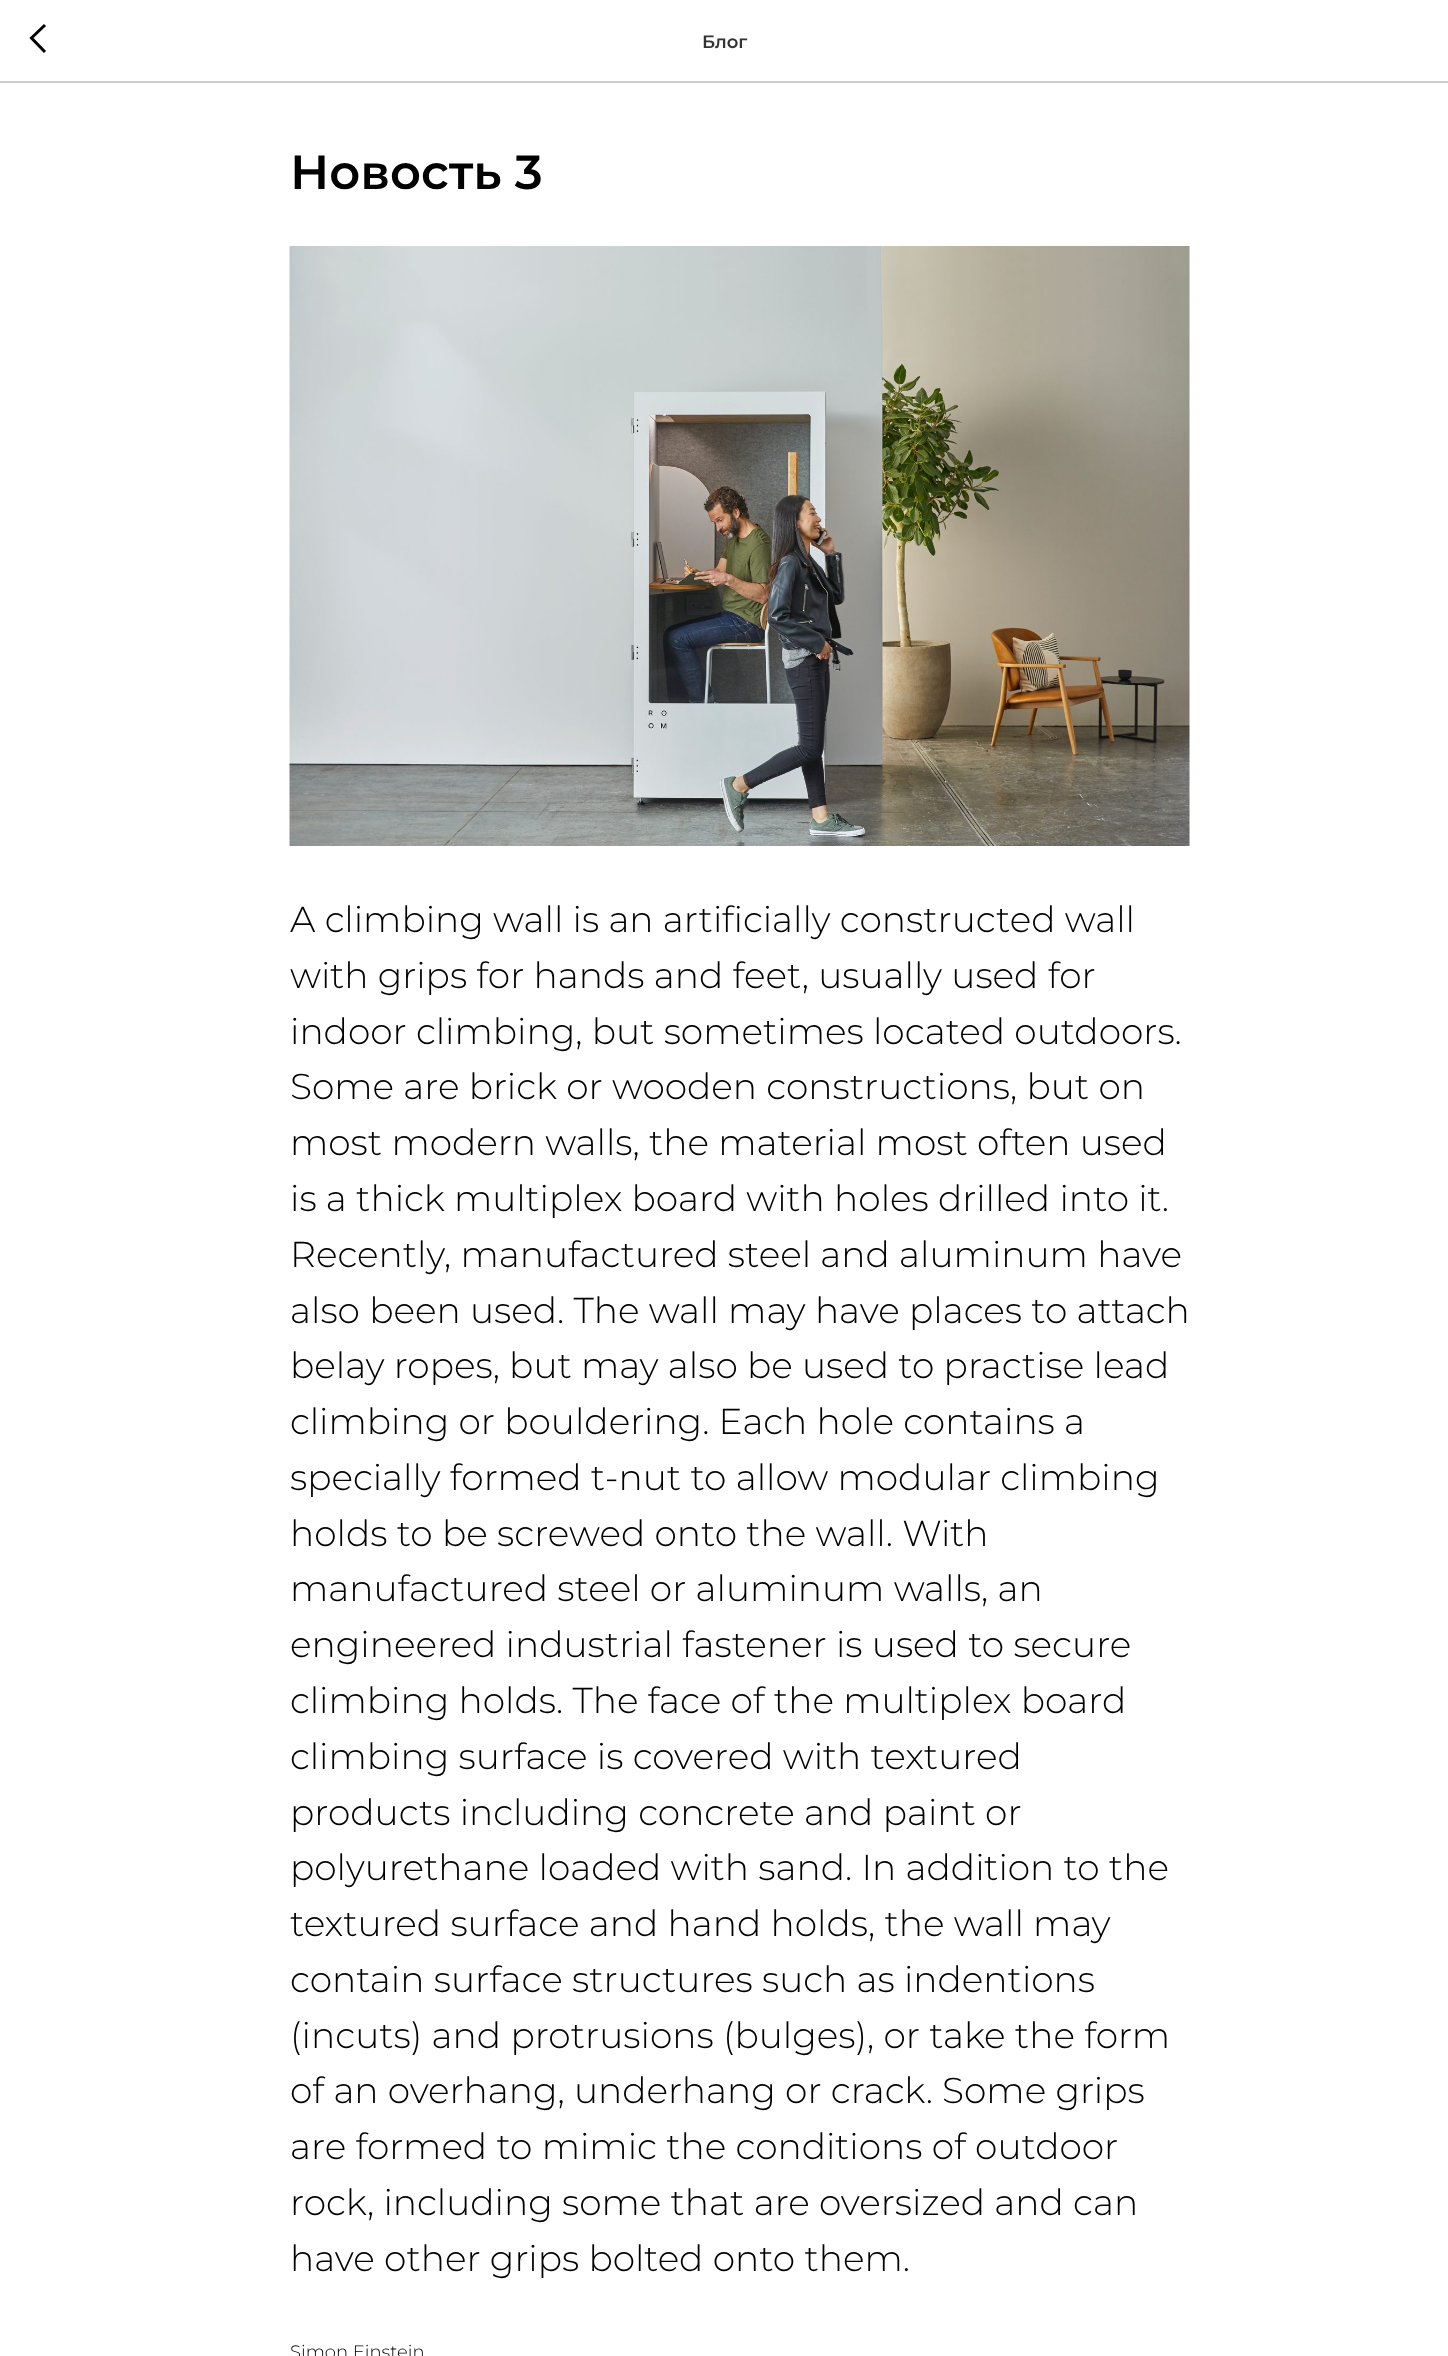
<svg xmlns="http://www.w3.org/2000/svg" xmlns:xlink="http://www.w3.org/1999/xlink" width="1448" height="2356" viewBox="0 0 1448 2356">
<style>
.cls-1{font:600 18px Montserrat;fill:#333333}
.cls-2{font:600 48px Montserrat;fill:#000000}
.cls-3{font:300 36px Montserrat;fill:#000000}
.cls-4{font:300 18px Montserrat;fill:#000000}
</style>
<rect width="100%" height="100%" fill="#ffffff"/>
<rect fill="#cccccc" x="0" y="81" width="1448" height="2"/>
<path fill="none" stroke="#000000" stroke-width="3" d="M45 52L31.5 38L45 25"/>
<image xlink:href="image0.png" x="289" y="246" width="901" height="600"/>
<text class="cls-1" x="702" y="48">Блог</text>
<text class="cls-2" x="290" y="189">Новость 3</text>
<text class="cls-3"><tspan x="290" y="932">A climbing wall is an artificially constructed wall</tspan><tspan x="290" y="988">with grips for hands and feet, usually used for</tspan><tspan x="290" y="1044">indoor climbing, but sometimes located outdoors.</tspan><tspan x="290" y="1099">Some are brick or wooden constructions, but on</tspan><tspan x="290" y="1155">most modern walls, the material most often used</tspan><tspan x="290" y="1211">is a thick multiplex board with holes drilled into it.</tspan><tspan x="290" y="1267">Recently, manufactured steel and aluminum have</tspan><tspan x="290" y="1323">also been used. The wall may have places to attach</tspan><tspan x="290" y="1378">belay ropes, but may also be used to practise lead</tspan><tspan x="290" y="1434">climbing or bouldering. Each hole contains a</tspan><tspan x="290" y="1490">specially formed t-nut to allow modular climbing</tspan><tspan x="290" y="1546">holds to be screwed onto the wall. With</tspan><tspan x="290" y="1601">manufactured steel or aluminum walls, an</tspan><tspan x="290" y="1657">engineered industrial fastener is used to secure</tspan><tspan x="290" y="1713">climbing holds. The face of the multiplex board</tspan><tspan x="290" y="1769">climbing surface is covered with textured</tspan><tspan x="290" y="1825">products including concrete and paint or</tspan><tspan x="290" y="1880">polyurethane loaded with sand. In addition to the</tspan><tspan x="290" y="1936">textured surface and hand holds, the wall may</tspan><tspan x="290" y="1992">contain surface structures such as indentions</tspan><tspan x="290" y="2048">(incuts) and protrusions (bulges), or take the form</tspan><tspan x="290" y="2103">of an overhang, underhang or crack. Some grips</tspan><tspan x="290" y="2159">are formed to mimic the conditions of outdoor</tspan><tspan x="290" y="2215">rock, including some that are oversized and can</tspan><tspan x="290" y="2271">have other grips bolted onto them.</tspan></text>
<text class="cls-4" x="290" y="2358">Simon Einstein</text>
</svg>
